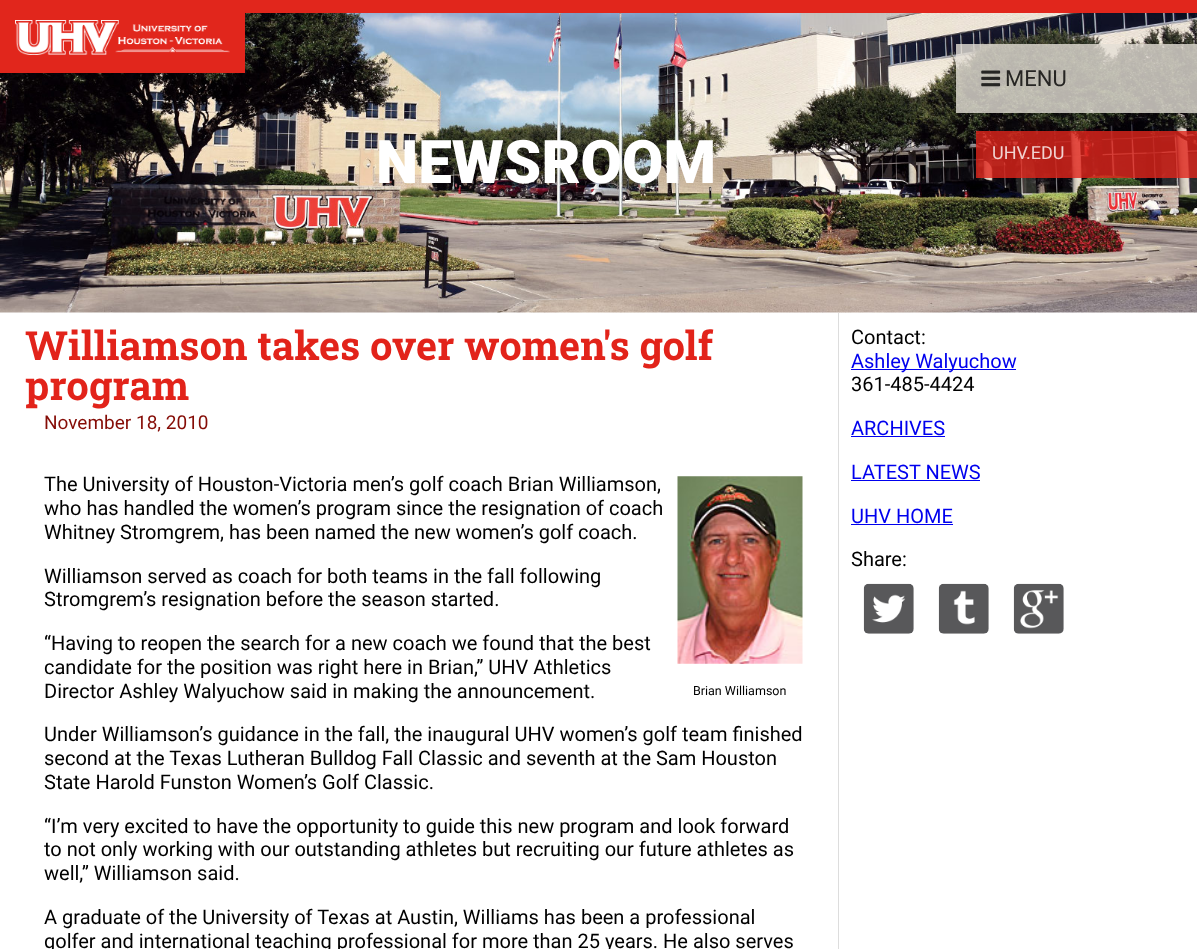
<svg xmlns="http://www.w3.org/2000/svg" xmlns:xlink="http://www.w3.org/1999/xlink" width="1197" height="949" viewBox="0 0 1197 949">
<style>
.cls-1{font:22px Roboto;fill:#262523}
.cls-2{font:18px Roboto;fill:#f1d3d1}
.cls-3{font:900 60px Roboto;fill:#ffffff}
.cls-4{font:bold 40px Roboto Slab;fill:#e2231a}
.cls-5{font:19px Roboto;fill:#850c06}
.cls-6{font:20px Roboto;fill:#000000}
.cls-7{font:12.5px Roboto;fill:#000000}
.cls-8{font:20px Roboto;fill:#0000ee}
</style>
<rect width="100%" height="100%" fill="#ffffff"/>
<image xlink:href="image1.png" x="0" y="13" width="1197" height="300"/>
<rect fill="#e4ded6" fill-opacity="0.8" x="956" y="44" width="241" height="69"/>
<image xlink:href="image0.png" x="981" y="70" width="20" height="17"/>
<rect fill="#e1261c" fill-opacity="0.8" x="976" y="131" width="221" height="47"/>
<rect fill="#e1261c" x="245" y="0" width="952" height="13"/>
<rect fill="#e1261c" x="0" y="0" width="245" height="73"/>
<image xlink:href="image2.png" x="15" y="20" width="215" height="35"/>
<rect fill="#dddddd" x="838" y="313" width="1" height="636"/>
<image xlink:href="image3.png" x="677" y="476" width="126" height="188"/>
<rect fill="#0000ee" x="851" y="369" width="165" height="1"/>
<rect fill="#0000ee" x="851" y="436" width="94" height="1"/>
<rect fill="#0000ee" x="851" y="480" width="129" height="1"/>
<rect fill="#0000ee" x="851" y="524" width="102" height="1"/>
<image xlink:href="image4.png" x="863" y="583" width="51" height="51"/>
<image xlink:href="image5.png" x="938" y="583" width="51" height="51"/>
<image xlink:href="image6.png" x="1013" y="583" width="51" height="51"/>
<text class="cls-1" x="1005" y="86">MENU</text>
<text class="cls-2" x="992" y="159">UHV.EDU</text>
<text class="cls-3" x="376" y="183">NEWSROOM</text>
<text class="cls-4"><tspan x="25" y="360">Williamson takes over women's golf</tspan><tspan x="25" y="400">program</tspan></text>
<text class="cls-5" x="44" y="429">November 18, 2010</text>
<text class="cls-6"><tspan x="44" y="491">The University of Houston-Victoria men’s golf coach Brian Williamson,</tspan><tspan x="44" y="515">who has handled the women’s program since the resignation of coach</tspan><tspan x="44" y="539">Whitney Stromgrem, has been named the new women’s golf coach.</tspan></text>
<text class="cls-6"><tspan x="44" y="583">Williamson served as coach for both teams in the fall following</tspan><tspan x="44" y="606">Stromgrem’s resignation before the season started.</tspan></text>
<text class="cls-6"><tspan x="44" y="650">“Having to reopen the search for a new coach we found that the best</tspan><tspan x="44" y="674">candidate for the position was right here in Brian,” UHV Athletics</tspan><tspan x="44" y="698">Director Ashley Walyuchow said in making the announcement.</tspan></text>
<text class="cls-7" x="693" y="695">Brian Williamson</text>
<text class="cls-6"><tspan x="44" y="741">Under Williamson’s guidance in the fall, the inaugural UHV women’s golf team finished</tspan><tspan x="44" y="765">second at the Texas Lutheran Bulldog Fall Classic and seventh at the Sam Houston</tspan><tspan x="44" y="789">State Harold Funston Women’s Golf Classic.</tspan></text>
<text class="cls-6"><tspan x="44" y="833">“I’m very excited to have the opportunity to guide this new program and look forward</tspan><tspan x="44" y="856">to not only working with our outstanding athletes but recruiting our future athletes as</tspan><tspan x="44" y="880">well,” Williamson said.</tspan></text>
<text class="cls-6"><tspan x="44" y="924">A graduate of the University of Texas at Austin, Williams has been a professional</tspan><tspan x="44" y="948">golfer and international teaching professional for more than 25 years. He also serves</tspan></text>
<text class="cls-6" x="851" y="344">Contact:</text>
<text class="cls-8" x="851" y="368">Ashley Walyuchow</text>
<text class="cls-6" x="851" y="391">361-485-4424</text>
<text class="cls-8" x="851" y="435">ARCHIVES</text>
<text class="cls-8" x="851" y="479">LATEST NEWS</text>
<text class="cls-8" x="851" y="523">UHV HOME</text>
<text class="cls-6" x="851" y="566">Share:</text>
</svg>
